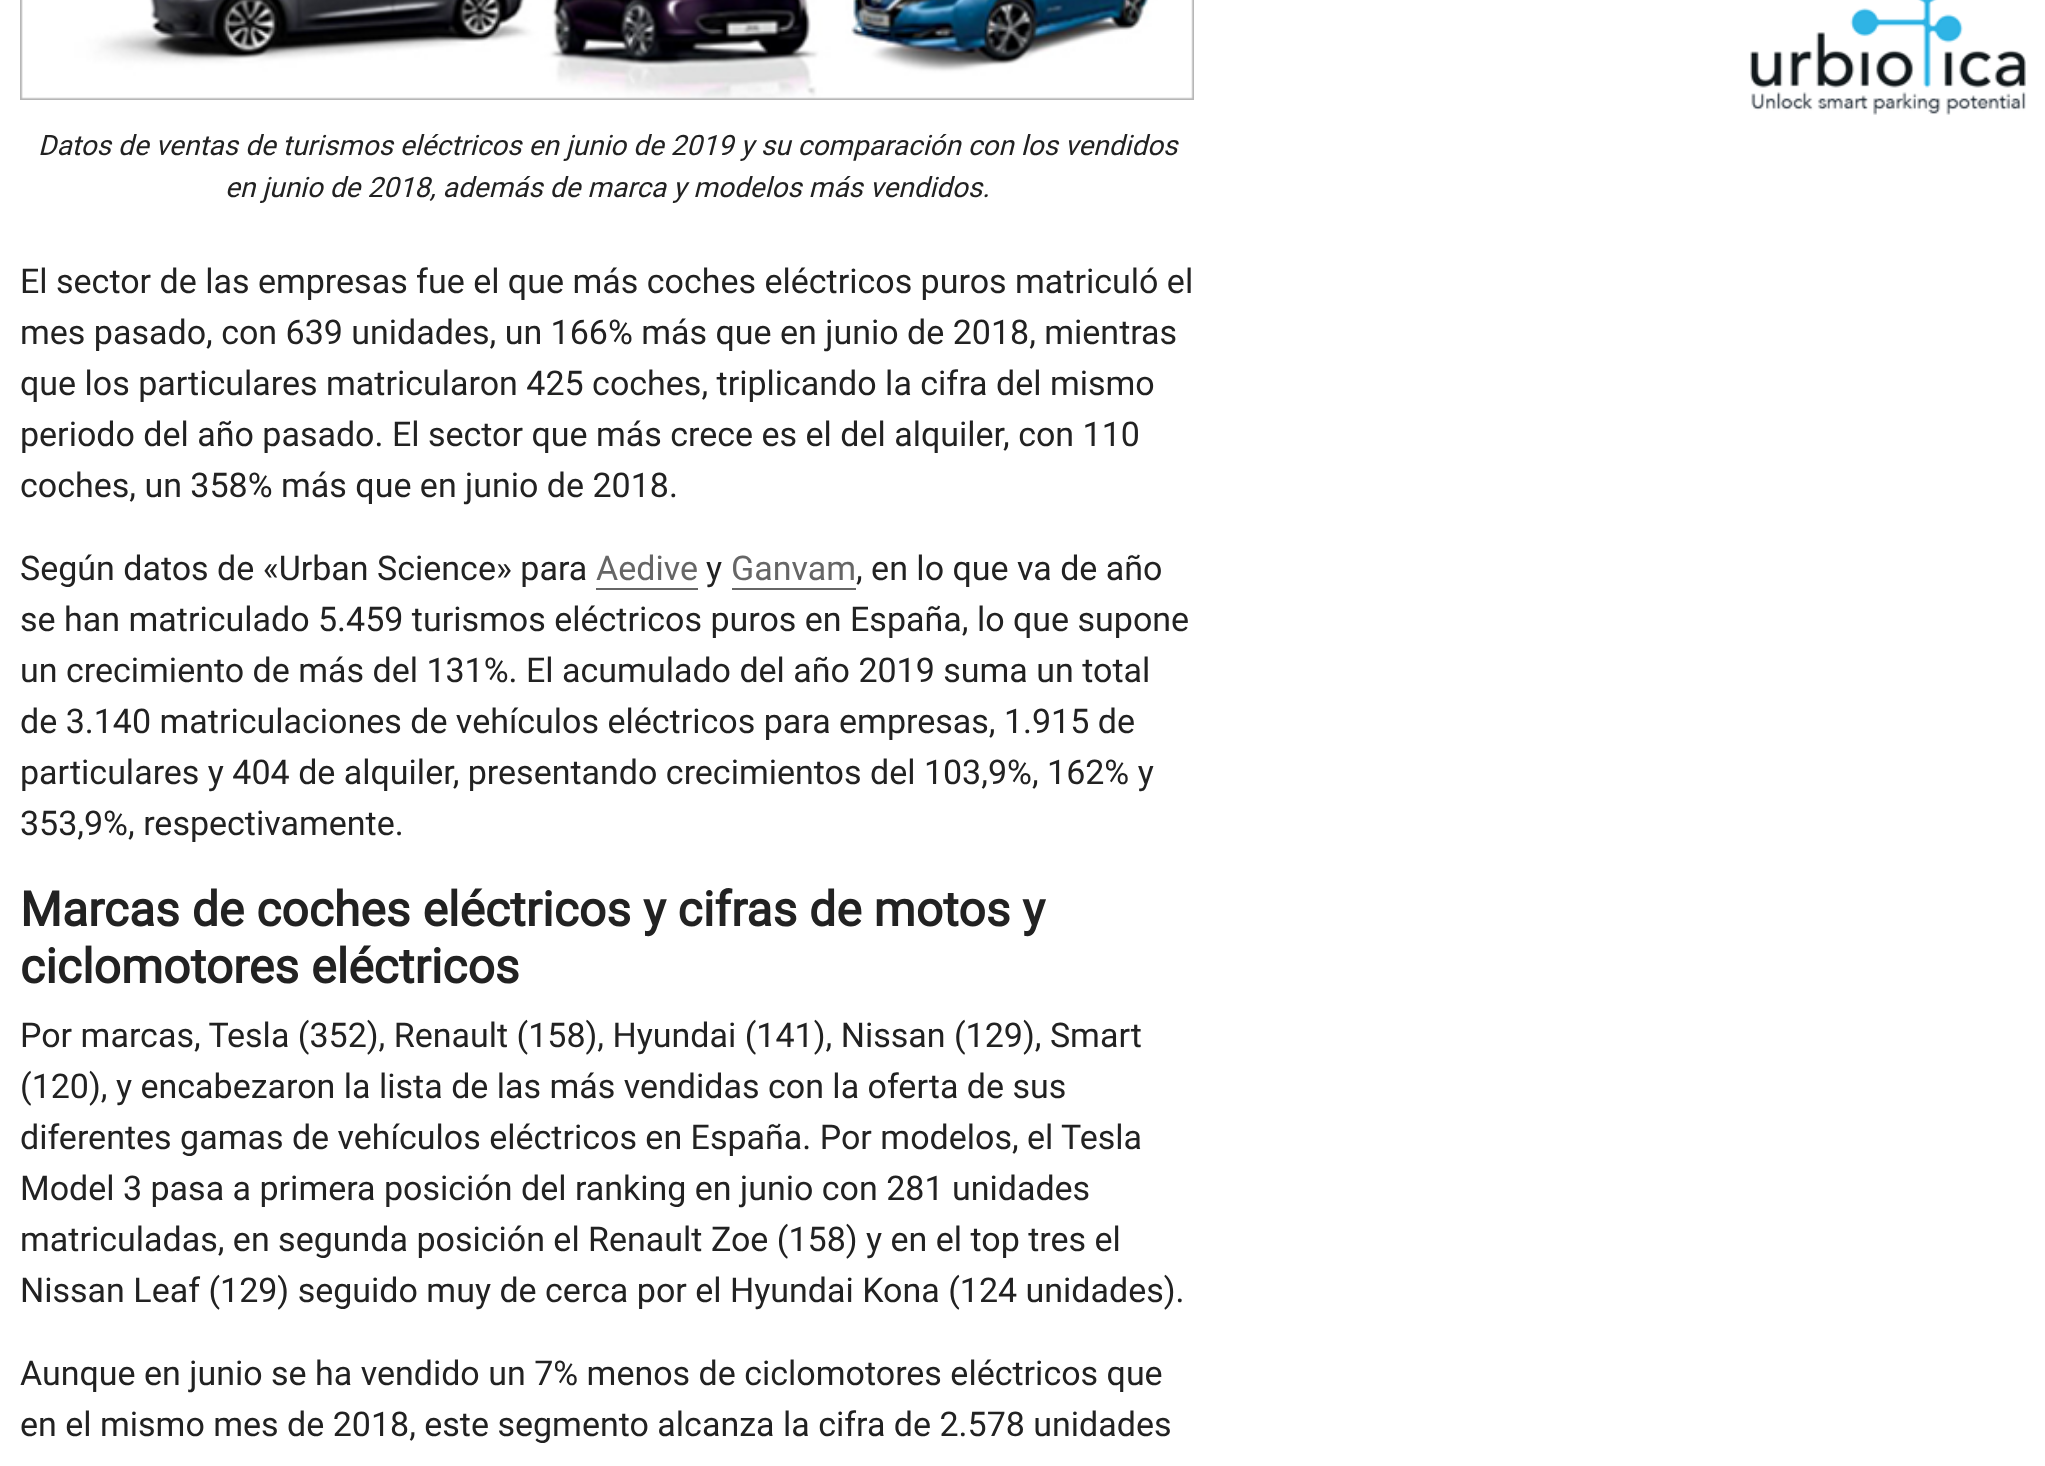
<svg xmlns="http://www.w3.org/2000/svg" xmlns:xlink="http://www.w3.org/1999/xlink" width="2045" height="1466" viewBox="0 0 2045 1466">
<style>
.cls-1{font:italic 28px Roboto;fill:#222222}
.cls-2{font:34px Roboto;fill:#222222}
.cls-3{font:34px Roboto;fill:#666666}
.cls-4{font:bold 48px Roboto;fill:#222222}
</style>
<rect width="100%" height="100%" fill="#ffffff"/>
<image xlink:href="image0.png" x="1750" y="0" width="276" height="115"/>
<image xlink:href="image1.png" x="20" y="0" width="1174" height="100"/>
<rect fill="#666666" x="596" y="588" width="102" height="2"/>
<rect fill="#666666" x="732" y="588" width="124" height="2"/>
<text class="cls-1" x="38" y="155">Datos de ventas de turismos eléctricos en junio de 2019 y su comparación con los vendidos</text>
<text class="cls-1" x="225" y="197">en junio de 2018, además de marca y modelos más vendidos.</text>
<text class="cls-2"><tspan x="20" y="293">El sector de las empresas fue el que más coches eléctricos puros matriculó el</tspan><tspan x="20" y="344">mes pasado, con 639 unidades, un 166% más que en junio de 2018, mientras</tspan><tspan x="20" y="395">que los particulares matricularon 425 coches, triplicando la cifra del mismo</tspan><tspan x="20" y="446">periodo del año pasado. El sector que más crece es el del alquiler, con 110</tspan><tspan x="20" y="497">coches, un 358% más que en junio de 2018.</tspan></text>
<text class="cls-2" x="20" y="580">Según datos de «Urban Science» para</text>
<text class="cls-3" x="596" y="580">Aedive</text>
<text class="cls-2" x="706" y="580">y</text>
<text class="cls-3" x="731" y="580">Ganvam</text>
<text class="cls-2" x="856" y="580">, en lo que va de año</text>
<text class="cls-2"><tspan x="20" y="631">se han matriculado 5.459 turismos eléctricos puros en España, lo que supone</tspan><tspan x="20" y="682">un crecimiento de más del 131%. El acumulado del año 2019 suma un total</tspan><tspan x="20" y="733">de 3.140 matriculaciones de vehículos eléctricos para empresas, 1.915 de</tspan><tspan x="20" y="784">particulares y 404 de alquiler, presentando crecimientos del 103,9%, 162% y</tspan><tspan x="20" y="835">353,9%, respectivamente.</tspan></text>
<text class="cls-4"><tspan x="20" y="926">Marcas de coches eléctricos y cifras de motos y</tspan><tspan x="20" y="983">ciclomotores eléctricos</tspan></text>
<text class="cls-2"><tspan x="20" y="1047">Por marcas, Tesla (352), Renault (158), Hyundai (141), Nissan (129), Smart</tspan><tspan x="20" y="1098">(120), y encabezaron la lista de las más vendidas con la oferta de sus</tspan><tspan x="20" y="1149">diferentes gamas de vehículos eléctricos en España. Por modelos, el Tesla</tspan><tspan x="20" y="1200">Model 3 pasa a primera posición del ranking en junio con 281 unidades</tspan><tspan x="20" y="1251">matriculadas, en segunda posición el Renault Zoe (158) y en el top tres el</tspan><tspan x="20" y="1302">Nissan Leaf (129) seguido muy de cerca por el Hyundai Kona (124 unidades).</tspan></text>
<text class="cls-2"><tspan x="20" y="1385">Aunque en junio se ha vendido un 7% menos de ciclomotores eléctricos que</tspan><tspan x="20" y="1436">en el mismo mes de 2018, este segmento alcanza la cifra de 2.578 unidades</tspan></text>
</svg>
